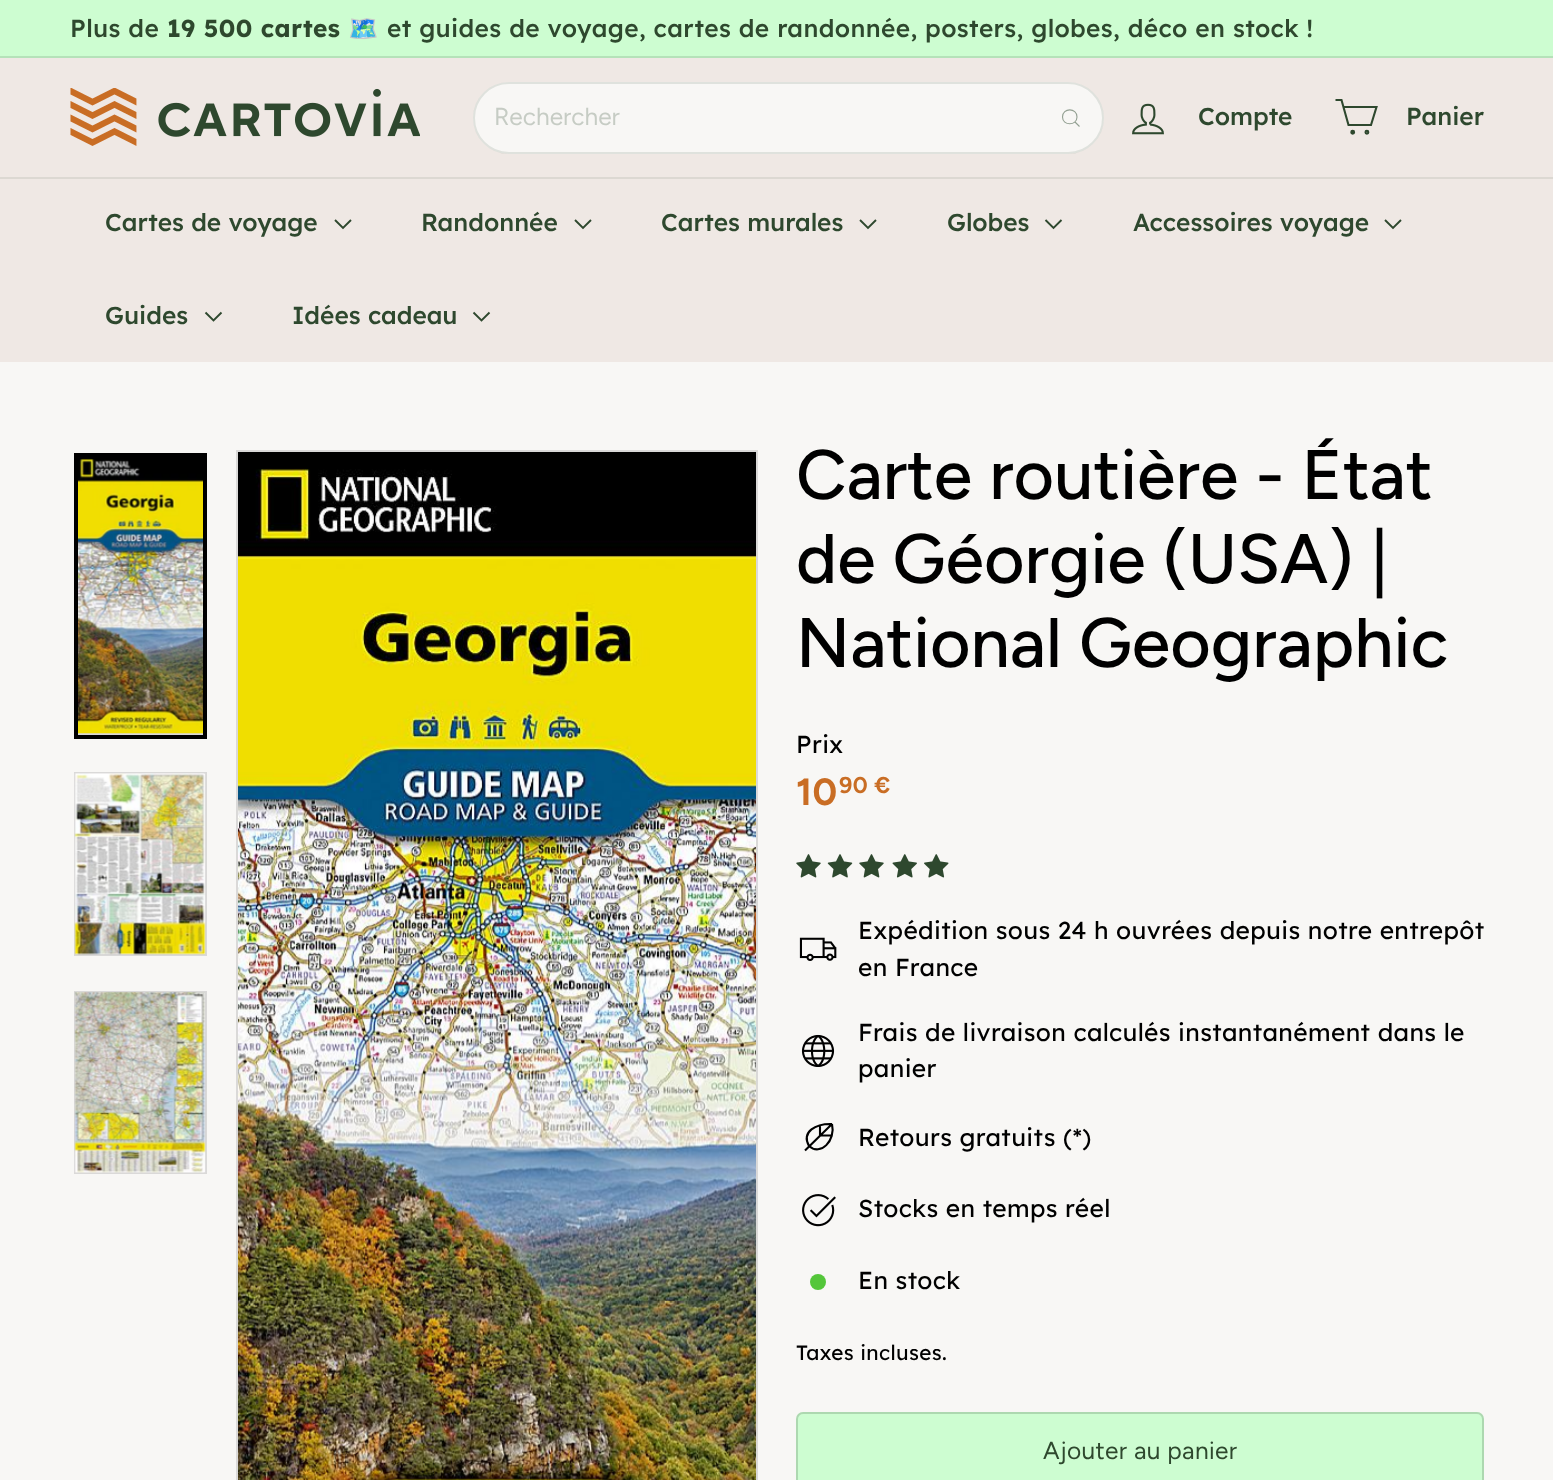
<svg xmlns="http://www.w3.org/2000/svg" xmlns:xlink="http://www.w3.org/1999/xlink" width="1553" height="1480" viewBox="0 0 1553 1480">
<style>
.cls-1{font:500 24.5px Lexend;letter-spacing:0.37px;fill:#2e482e}
.cls-2{font:bold 24.5px Lexend;letter-spacing:0.37px;fill:#2e482e}
.cls-3{font:bold 24.5px Noto Color Emoji;letter-spacing:0.37px;fill:#2e482e}
.cls-4{font:24.5px Figtree;fill:#c6ccc4}
.cls-5{font:500 24.5px Lexend;fill:#2e482e}
.cls-6{font:500 70px Figtree;fill:#000000}
.cls-7{font:24.5px Lexend;letter-spacing:0.37px;fill:#000000}
.cls-8{font:bold 38px Figtree;letter-spacing:0.5px;fill:#c96d24}
.cls-9{font:bold 23px Figtree;letter-spacing:0.5px;fill:#c96d24}
.cls-10{font:20.75px Lexend;letter-spacing:0.37px;fill:#000000}
.cls-11{font:24.5px Figtree;letter-spacing:0.37px;fill:#2e482e}
</style>
<rect width="100%" height="100%" fill="#f8f7f5"/>
<rect fill="#cdfdd1" x="0" y="0" width="1553" height="56"/>
<rect fill="#b5e2b9" x="0" y="56" width="1553" height="2"/>
<rect fill="#efe8e4" x="0" y="58" width="1553" height="119"/>
<image xlink:href="image0.png" x="70" y="88" width="350" height="58"/>
<rect fill="#f8f7f5" x="473" y="82" width="631" height="72" rx="36"/>
<rect fill="none" stroke="#2e482e" stroke-opacity="0.12" stroke-width="2" x="474" y="83" width="629" height="70" rx="35"/>
<path fill="none" stroke="#93a092" stroke-width="1.1" d="M1077 117C1077 126 1062.5 126 1062.5 117C1062.5 107.5 1077 107.5 1077 117M1079.5 126.5L1075 122"/>
<image xlink:href="image1.png" x="1132" y="103" width="32" height="32"/>
<path fill="none" stroke="#2e482e" stroke-width="2.1" d="M1343.5 107H1376.5L1371 125H1348.5L1341.5 100H1335.5"/>
<circle fill="#2e482e" stroke="#2e482e" stroke-width="2.1" cx="1352.7" cy="132.2" r="1.4"/>
<circle fill="none" stroke="#2e482e" stroke-width="2.1" cx="1366.9" cy="132.2" r="1.4"/>
<rect fill="#efe8e4" x="0" y="179" width="1553" height="183"/>
<rect fill="#dcd8d2" x="0" y="177" width="1553" height="2"/>
<path fill="none" stroke="#2e482e" stroke-width="1.9" d="M335 220L343 228L351 220"/>
<path fill="none" stroke="#2e482e" stroke-width="1.9" d="M575 220L583 228L591 220"/>
<path fill="none" stroke="#2e482e" stroke-width="1.9" d="M860 220L868 228L876 220"/>
<path fill="none" stroke="#2e482e" stroke-width="1.9" d="M1045.5 220L1053.5 228L1061.5 220"/>
<path fill="none" stroke="#2e482e" stroke-width="1.9" d="M1385 220L1393 228L1401 220"/>
<path fill="none" stroke="#2e482e" stroke-width="1.9" d="M205.5 312.5L213.5 320.5L221.5 312.5"/>
<path fill="none" stroke="#2e482e" stroke-width="1.9" d="M473.5 312.5L481.5 320.5L489.5 312.5"/>
<rect fill="none" stroke="#dad9d8" stroke-width="2" x="75" y="454" width="131" height="280"/>
<image xlink:href="image2.png" x="78" y="457" width="125" height="277"/>
<rect fill="none" stroke="#000000" stroke-width="4" x="76" y="455" width="129" height="282"/>
<rect fill="none" stroke="#dad9d8" stroke-width="2" x="75" y="773" width="131" height="182"/>
<image xlink:href="image3.png" x="74" y="773" width="132" height="182"/>
<rect fill="none" stroke="#dad9d8" stroke-width="2" x="75" y="992" width="131" height="181"/>
<image xlink:href="image4.png" x="74" y="992" width="132" height="181"/>
<rect fill="none" stroke="#dad9d8" stroke-width="2" x="237" y="451" width="520" height="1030"/>
<image xlink:href="image5.png" x="238" y="452" width="518" height="1028"/>
<image xlink:href="image6.png" x="796" y="854" width="25" height="24"/>
<image xlink:href="image7.png" x="827" y="854" width="26" height="24"/>
<image xlink:href="image6.png" x="859" y="854" width="25" height="24"/>
<image xlink:href="image8.png" x="892" y="854" width="25" height="24"/>
<image xlink:href="image9.png" x="924" y="854" width="25" height="24"/>
<image xlink:href="image10.png" x="799" y="937" width="38" height="24"/>
<image xlink:href="image11.png" x="801" y="1034" width="34" height="33"/>
<path fill="none" stroke="#000000" stroke-width="2.1" d="M832 1124L805 1150.5M820 1125.5V1135.5H831M832 1124C836 1140.5 820.5 1156.5 809 1146C801 1131.5 816 1123.5 832 1124"/>
<image xlink:href="image12.png" x="802" y="1194" width="34" height="33"/>
<circle fill="#54c63a" cx="818" cy="1282" r="8"/>
<rect fill="#cdfdd1" x="796" y="1412" width="688" height="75" rx="7"/>
<rect fill="none" stroke="#2e482e" stroke-opacity="0.2" stroke-width="2" x="797" y="1413" width="686" height="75" rx="6"/>
<text class="cls-1" x="70" y="37">Plus de</text>
<text class="cls-2" x="167" y="37">19 500 cartes</text>
<text class="cls-3" x="348" y="37">🗺️</text>
<text class="cls-1" x="387" y="37">et guides de voyage, cartes de randonnée, posters, globes, déco en stock !</text>
<text class="cls-4" x="494" y="125">Rechercher</text>
<text class="cls-5" x="1198" y="125">Compte</text>
<text class="cls-5" x="1406" y="125">Panier</text>
<text class="cls-5" x="105" y="231">Cartes de voyage</text>
<text class="cls-5" x="421" y="231">Randonnée</text>
<text class="cls-5" x="661" y="231">Cartes murales</text>
<text class="cls-5" x="947" y="231">Globes</text>
<text class="cls-5" x="1133" y="231">Accessoires voyage</text>
<text class="cls-5" x="105" y="324">Guides</text>
<text class="cls-5" x="292" y="324">Idées cadeau</text>
<text class="cls-6"><tspan x="796" y="499">Carte routière - État</tspan><tspan x="796" y="583">de Géorgie (USA) |</tspan><tspan x="796" y="667">National Geographic</tspan></text>
<text class="cls-7" x="796" y="753">Prix</text>
<text class="cls-8" x="796" y="805">10</text>
<text class="cls-9" x="839" y="793">90 €</text>
<text class="cls-7"><tspan x="858" y="939">Expédition sous 24 h ouvrées depuis notre entrepôt</tspan><tspan x="858" y="976">en France</tspan></text>
<text class="cls-7"><tspan x="858" y="1041">Frais de livraison calculés instantanément dans le</tspan><tspan x="858" y="1077">panier</tspan></text>
<text class="cls-7" x="858" y="1146">Retours gratuits (*)</text>
<text class="cls-7" x="858" y="1217">Stocks en temps réel</text>
<text class="cls-7" x="858" y="1289">En stock</text>
<text class="cls-10" x="796" y="1360">Taxes incluses.</text>
<text class="cls-11" x="1043" y="1459">Ajouter au panier</text>
</svg>
